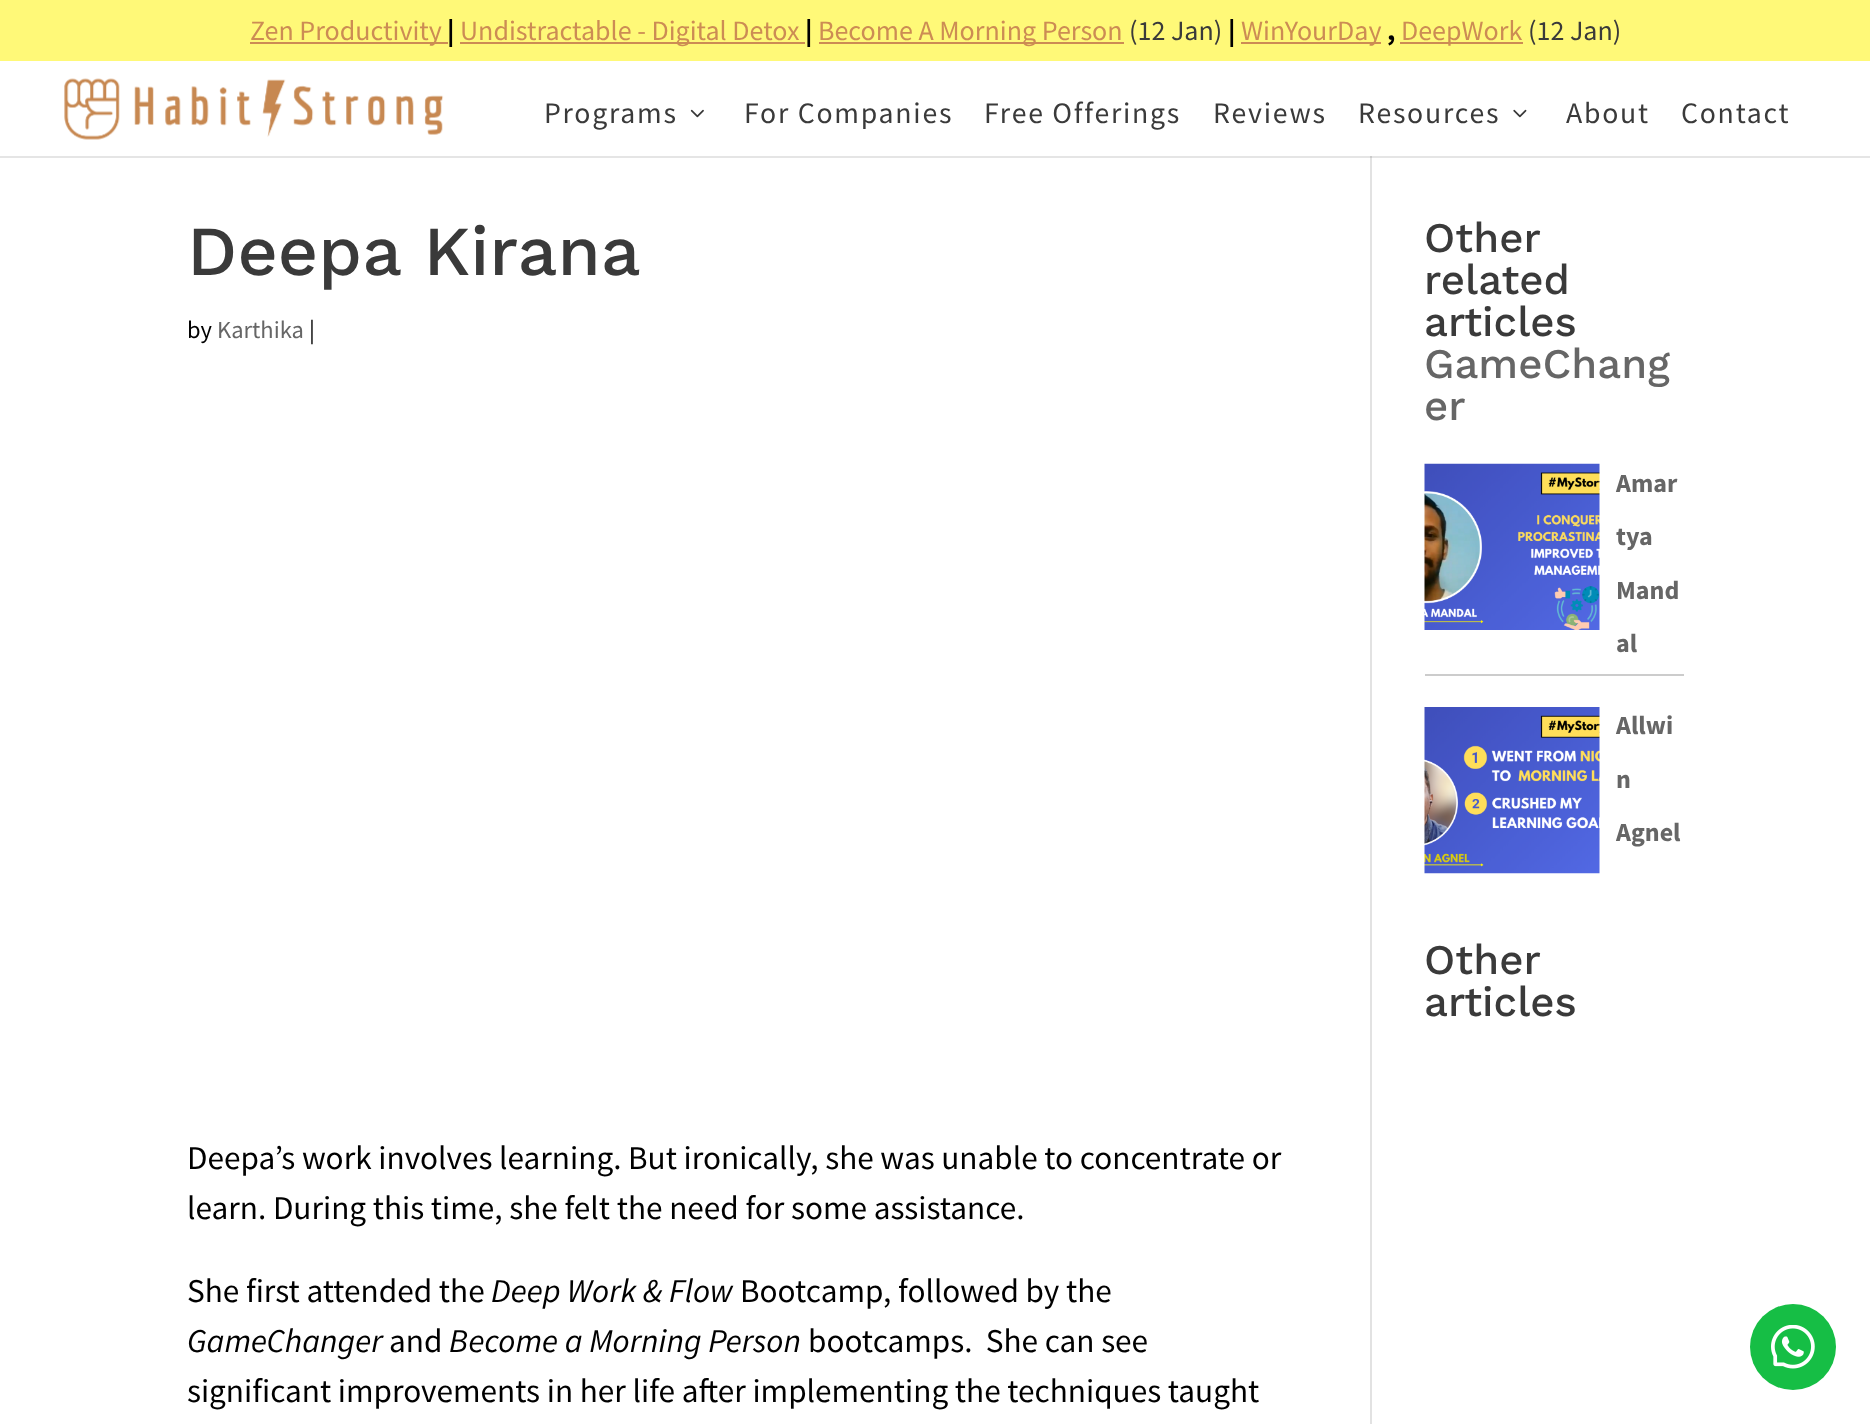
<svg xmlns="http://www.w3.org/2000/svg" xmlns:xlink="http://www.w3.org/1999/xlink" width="1870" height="1424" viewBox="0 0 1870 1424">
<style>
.cls-1{font:28px Source Sans Pro;fill:#cc8c54}
.cls-2{font:bold 28px Source Sans Pro;fill:#000000}
.cls-3{font:28px Source Sans Pro;fill:#3a3a3a}
.cls-4{font:29.75px Source Sans Pro;letter-spacing:1.75px;fill:#3a3a3a}
.cls-5{font:500 70px Work Sans;fill:#3a3a3a}
.cls-6{font:24.5px Source Sans Pro;fill:#000000}
.cls-7{font:24.5px Source Sans Pro;fill:#666666}
.cls-8{font:33.25px Source Sans Pro;fill:#000000}
.cls-9{font:italic 33.25px Source Sans Pro;fill:#000000}
.cls-10{font:500 42px Work Sans;fill:#3a3a3a}
.cls-11{font:500 42px Work Sans;fill:#666666}
.cls-12{font:bold 26px Source Sans Pro;fill:#666666}
</style>
<rect width="100%" height="100%" fill="#ffffff"/>
<rect fill="#e2e2e2" x="1370" y="156" width="2" height="1268"/>
<path fill="#000000" fill-opacity="0.1" d="M0 156V158H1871V2V156Z"/>
<rect fill="#fff978" x="0" y="0" width="1870" height="61"/>
<rect fill="#cc8c54" x="250" y="42" width="198" height="2"/>
<rect fill="#cc8c54" x="460" y="42" width="345" height="2"/>
<rect fill="#cc8c54" x="819" y="42" width="305" height="2"/>
<rect fill="#cc8c54" x="1241" y="42" width="140" height="2"/>
<rect fill="#cc8c54" x="1400" y="42" width="123" height="2"/>
<image xlink:href="image0.png" x="64" y="78" width="380" height="62"/>
<image xlink:href="image1.png" x="690" y="109" width="14" height="9"/>
<image xlink:href="image2.png" x="1513" y="109" width="14" height="9"/>
<rect fill="#cccccc" x="1425" y="674" width="259" height="2"/>
<image xlink:href="image3.png" x="1424" y="463" width="176" height="167"/>
<image xlink:href="image4.png" x="1424" y="707" width="176" height="167"/>
<circle fill="#16be45" cx="1793" cy="1347" r="43"/>
<image xlink:href="image5.png" x="1771" y="1325" width="44" height="44"/>
<text class="cls-1" x="250" y="40">Zen Productivity</text>
<text class="cls-2" x="447" y="40">|</text>
<text class="cls-1" x="460" y="40">Undistractable - Digital Detox</text>
<text class="cls-2" x="805" y="40">|</text>
<text class="cls-1" x="818" y="40">Become A Morning Person</text>
<text class="cls-3" x="1129" y="40">(12 Jan)</text>
<text class="cls-2" x="1228" y="40">|</text>
<text class="cls-1" x="1241" y="40">WinYourDay</text>
<text class="cls-2" x="1387" y="40">,</text>
<text class="cls-1" x="1401" y="40">DeepWork</text>
<text class="cls-3" x="1528" y="40">(12 Jan)</text>
<text class="cls-4" x="544" y="123">Programs</text>
<text class="cls-4" x="744" y="123">For Companies</text>
<text class="cls-4" x="984" y="123">Free Offerings</text>
<text class="cls-4" x="1213" y="123">Reviews</text>
<text class="cls-4" x="1358" y="123">Resources</text>
<text class="cls-4" x="1566" y="123">About</text>
<text class="cls-4" x="1681" y="123">Contact</text>
<text class="cls-5" x="187" y="275">Deepa Kirana</text>
<text class="cls-6" x="187" y="338">by</text>
<text class="cls-7" x="217" y="338">Karthika</text>
<text class="cls-6" x="309" y="338">|</text>
<text class="cls-8"><tspan x="187" y="1169">Deepa’s work involves learning. But ironically, she was unable to concentrate or</tspan><tspan x="187" y="1219">learn. During this time, she felt the need for some assistance.</tspan></text>
<text class="cls-8" x="187" y="1302">She first attended the</text>
<text class="cls-9" x="491" y="1302">Deep Work &amp; Flow</text>
<text class="cls-8" x="740" y="1302">Bootcamp, followed by the</text>
<text class="cls-9" x="187" y="1352">GameChanger</text>
<text class="cls-8" x="389" y="1352">and</text>
<text class="cls-9" x="449" y="1352">Become a Morning Person</text>
<text class="cls-8" xml:space="preserve" x="808" y="1352">bootcamps.  She can see</text>
<text class="cls-8" x="187" y="1402">significant improvements in her life after implementing the techniques taught</text>
<text class="cls-10"><tspan x="1424" y="252">Other</tspan><tspan x="1424" y="294">related</tspan><tspan x="1424" y="336">articles</tspan></text>
<text class="cls-11"><tspan x="1424" y="378">GameChang</tspan><tspan x="1424" y="420">er</tspan></text>
<text class="cls-12" x="1616" y="492">Amar</text>
<text class="cls-12" x="1616" y="545">tya</text>
<text class="cls-12" x="1616" y="599">Mand</text>
<text class="cls-12" x="1616" y="652">al</text>
<text class="cls-12" x="1616" y="734">Allwi</text>
<text class="cls-12" x="1616" y="788">n</text>
<text class="cls-12" x="1616" y="841">Agnel</text>
<text class="cls-10"><tspan x="1424" y="974">Other</tspan><tspan x="1424" y="1016">articles</tspan></text>
</svg>
